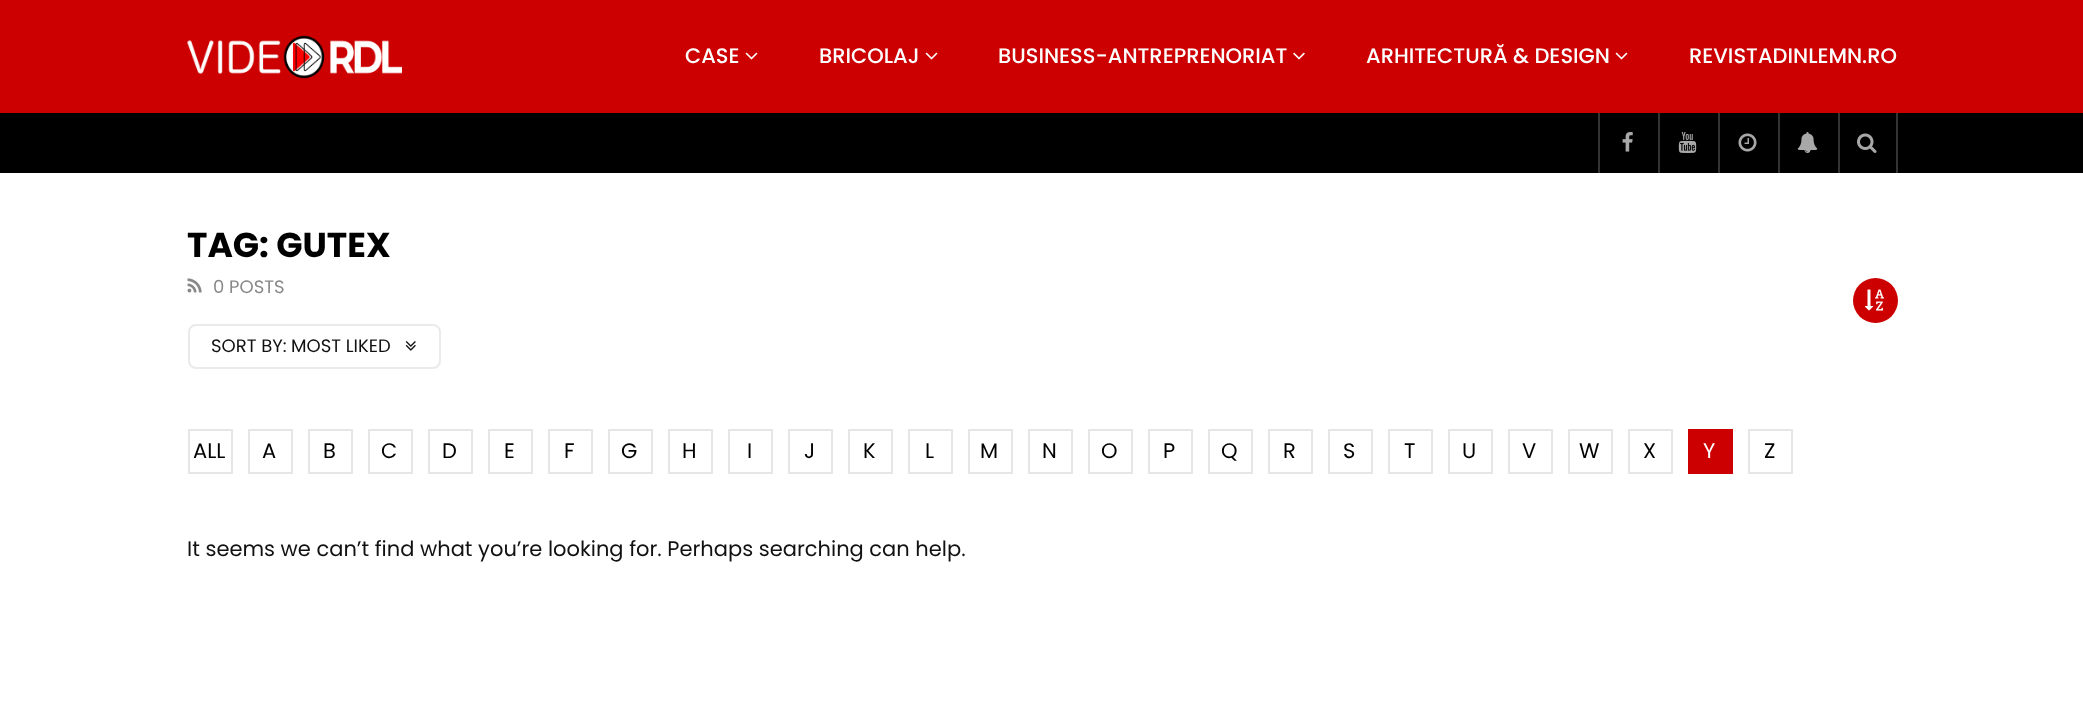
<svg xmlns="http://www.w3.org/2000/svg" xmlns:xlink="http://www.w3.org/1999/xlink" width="2083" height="706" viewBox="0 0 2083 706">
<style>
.cls-1{font:500 21px Poppins;fill:#ffffff}
.cls-2{font:bold 34.5px Poppins;fill:#000000}
.cls-3{font:18px Poppins;fill:#888888}
.cls-4{font:18px Poppins;fill:#111111}
.cls-5{font:21px Poppins;fill:#000000}
.cls-6{font:21px Poppins;fill:#ffffff}
.cls-7{font:21px Poppins;fill:#111111}
</style>
<defs>
<clipPath id="clip1"><rect x="212" y="326" width="205" height="42"/></clipPath>
</defs>
<rect width="100%" height="100%" fill="#ffffff"/>
<rect fill="#cc0000" x="0" y="0" width="2083" height="113"/>
<image xlink:href="image0.png" x="187" y="35" width="215" height="44"/>
<image xlink:href="image1.png" x="745" y="52" width="13" height="8"/>
<image xlink:href="image1.png" x="925" y="52" width="13" height="8"/>
<image xlink:href="image2.png" x="1293" y="52" width="12" height="8"/>
<image xlink:href="image1.png" x="1615" y="52" width="13" height="8"/>
<rect fill="#000000" x="0" y="113" width="2083" height="60"/>
<rect fill="#333333" x="1598" y="113" width="2" height="60"/>
<image xlink:href="image3.png" x="1622" y="132" width="11" height="20"/>
<rect fill="#333333" x="1658" y="113" width="2" height="60"/>
<image xlink:href="image4.png" x="1678" y="132" width="19" height="21"/>
<rect fill="#333333" x="1718" y="113" width="2" height="60"/>
<image xlink:href="image5.png" x="1738" y="133" width="19" height="19"/>
<rect fill="#333333" x="1778" y="113" width="2" height="60"/>
<image xlink:href="image6.png" x="1797" y="132" width="21" height="21"/>
<rect fill="#333333" x="1896" y="113" width="2" height="60"/>
<rect fill="#333333" x="1838" y="113" width="2" height="60"/>
<image xlink:href="image7.png" x="1857" y="133" width="20" height="20"/>
<image xlink:href="image8.png" x="187" y="278" width="15" height="15"/>
<rect fill="none" stroke="#eaeaea" stroke-width="2" x="189" y="325" width="251" height="43" rx="7"/>
<image xlink:href="image9.png" x="405" y="341" width="11" height="10"/>
<circle fill="#cc0000" cx="1875.5" cy="300.5" r="22.5"/>
<image xlink:href="image10.png" x="1864" y="289" width="20" height="22"/>
<rect fill="none" stroke="#e6e6e6" stroke-width="2" x="189" y="430" width="43" height="43"/>
<rect fill="none" stroke="#e6e6e6" stroke-width="2" x="249" y="430" width="43" height="43"/>
<rect fill="none" stroke="#e6e6e6" stroke-width="2" x="309" y="430" width="43" height="43"/>
<rect fill="none" stroke="#e6e6e6" stroke-width="2" x="369" y="430" width="43" height="43"/>
<rect fill="none" stroke="#e6e6e6" stroke-width="2" x="429" y="430" width="43" height="43"/>
<rect fill="none" stroke="#e6e6e6" stroke-width="2" x="489" y="430" width="43" height="43"/>
<rect fill="none" stroke="#e6e6e6" stroke-width="2" x="549" y="430" width="43" height="43"/>
<rect fill="none" stroke="#e6e6e6" stroke-width="2" x="609" y="430" width="43" height="43"/>
<rect fill="none" stroke="#e6e6e6" stroke-width="2" x="669" y="430" width="43" height="43"/>
<rect fill="none" stroke="#e6e6e6" stroke-width="2" x="729" y="430" width="43" height="43"/>
<rect fill="none" stroke="#e6e6e6" stroke-width="2" x="789" y="430" width="43" height="43"/>
<rect fill="none" stroke="#e6e6e6" stroke-width="2" x="849" y="430" width="43" height="43"/>
<rect fill="none" stroke="#e6e6e6" stroke-width="2" x="909" y="430" width="43" height="43"/>
<rect fill="none" stroke="#e6e6e6" stroke-width="2" x="969" y="430" width="43" height="43"/>
<rect fill="none" stroke="#e6e6e6" stroke-width="2" x="1029" y="430" width="43" height="43"/>
<rect fill="none" stroke="#e6e6e6" stroke-width="2" x="1089" y="430" width="43" height="43"/>
<rect fill="none" stroke="#e6e6e6" stroke-width="2" x="1149" y="430" width="43" height="43"/>
<rect fill="none" stroke="#e6e6e6" stroke-width="2" x="1209" y="430" width="43" height="43"/>
<rect fill="none" stroke="#e6e6e6" stroke-width="2" x="1269" y="430" width="43" height="43"/>
<rect fill="none" stroke="#e6e6e6" stroke-width="2" x="1329" y="430" width="43" height="43"/>
<rect fill="none" stroke="#e6e6e6" stroke-width="2" x="1389" y="430" width="43" height="43"/>
<rect fill="none" stroke="#e6e6e6" stroke-width="2" x="1449" y="430" width="43" height="43"/>
<rect fill="none" stroke="#e6e6e6" stroke-width="2" x="1509" y="430" width="43" height="43"/>
<rect fill="none" stroke="#e6e6e6" stroke-width="2" x="1569" y="430" width="43" height="43"/>
<rect fill="none" stroke="#e6e6e6" stroke-width="2" x="1629" y="430" width="43" height="43"/>
<rect fill="#cc0000" x="1688" y="429" width="45" height="45"/>
<rect fill="none" stroke="#e6e6e6" stroke-width="2" x="1749" y="430" width="43" height="43"/>
<text class="cls-1" x="685" y="63">CASE</text>
<text class="cls-1" x="819" y="63">BRICOLAJ</text>
<text class="cls-1" x="998" y="63">BUSINESS-ANTREPRENORIAT</text>
<text class="cls-1" x="1366" y="63">ARHITECTURĂ &amp; DESIGN</text>
<text class="cls-1" x="1689" y="63">REVISTADINLEMN.RO</text>
<text class="cls-2" x="187" y="257">TAG: GUTEX</text>
<text class="cls-3" x="213" y="293">0 POSTS</text>
<g clip-path="url(#clip1)">
<text class="cls-4" x="211" y="352">SORT BY:</text>
</g>
<text class="cls-4" x="291" y="352">MOST LIKED</text>
<text class="cls-5" x="193" y="458">ALL</text>
<text class="cls-5" x="262" y="458">A</text>
<text class="cls-5" x="323" y="458">B</text>
<text class="cls-5" x="381" y="458">C</text>
<text class="cls-5" x="442" y="458">D</text>
<text class="cls-5" x="504" y="458">E</text>
<text class="cls-5" x="564" y="458">F</text>
<text class="cls-5" x="621" y="458">G</text>
<text class="cls-5" x="682" y="458">H</text>
<text class="cls-5" x="747" y="458">I</text>
<text class="cls-5" x="804" y="458">J</text>
<text class="cls-5" x="863" y="458">K</text>
<text class="cls-5" x="925" y="458">L</text>
<text class="cls-5" x="980" y="458">M</text>
<text class="cls-5" x="1042" y="458">N</text>
<text class="cls-5" x="1101" y="458">O</text>
<text class="cls-5" x="1163" y="458">P</text>
<text class="cls-5" x="1221" y="458">Q</text>
<text class="cls-5" x="1283" y="458">R</text>
<text class="cls-5" x="1343" y="458">S</text>
<text class="cls-5" x="1404" y="458">T</text>
<text class="cls-5" x="1462" y="458">U</text>
<text class="cls-5" x="1522" y="458">V</text>
<text class="cls-5" x="1579" y="458">W</text>
<text class="cls-5" x="1643" y="458">X</text>
<text class="cls-6" x="1703" y="458">Y</text>
<text class="cls-5" x="1764" y="458">Z</text>
<text class="cls-7" x="187" y="556">It seems we can’t find what you’re looking for. Perhaps searching can help.</text>
</svg>
